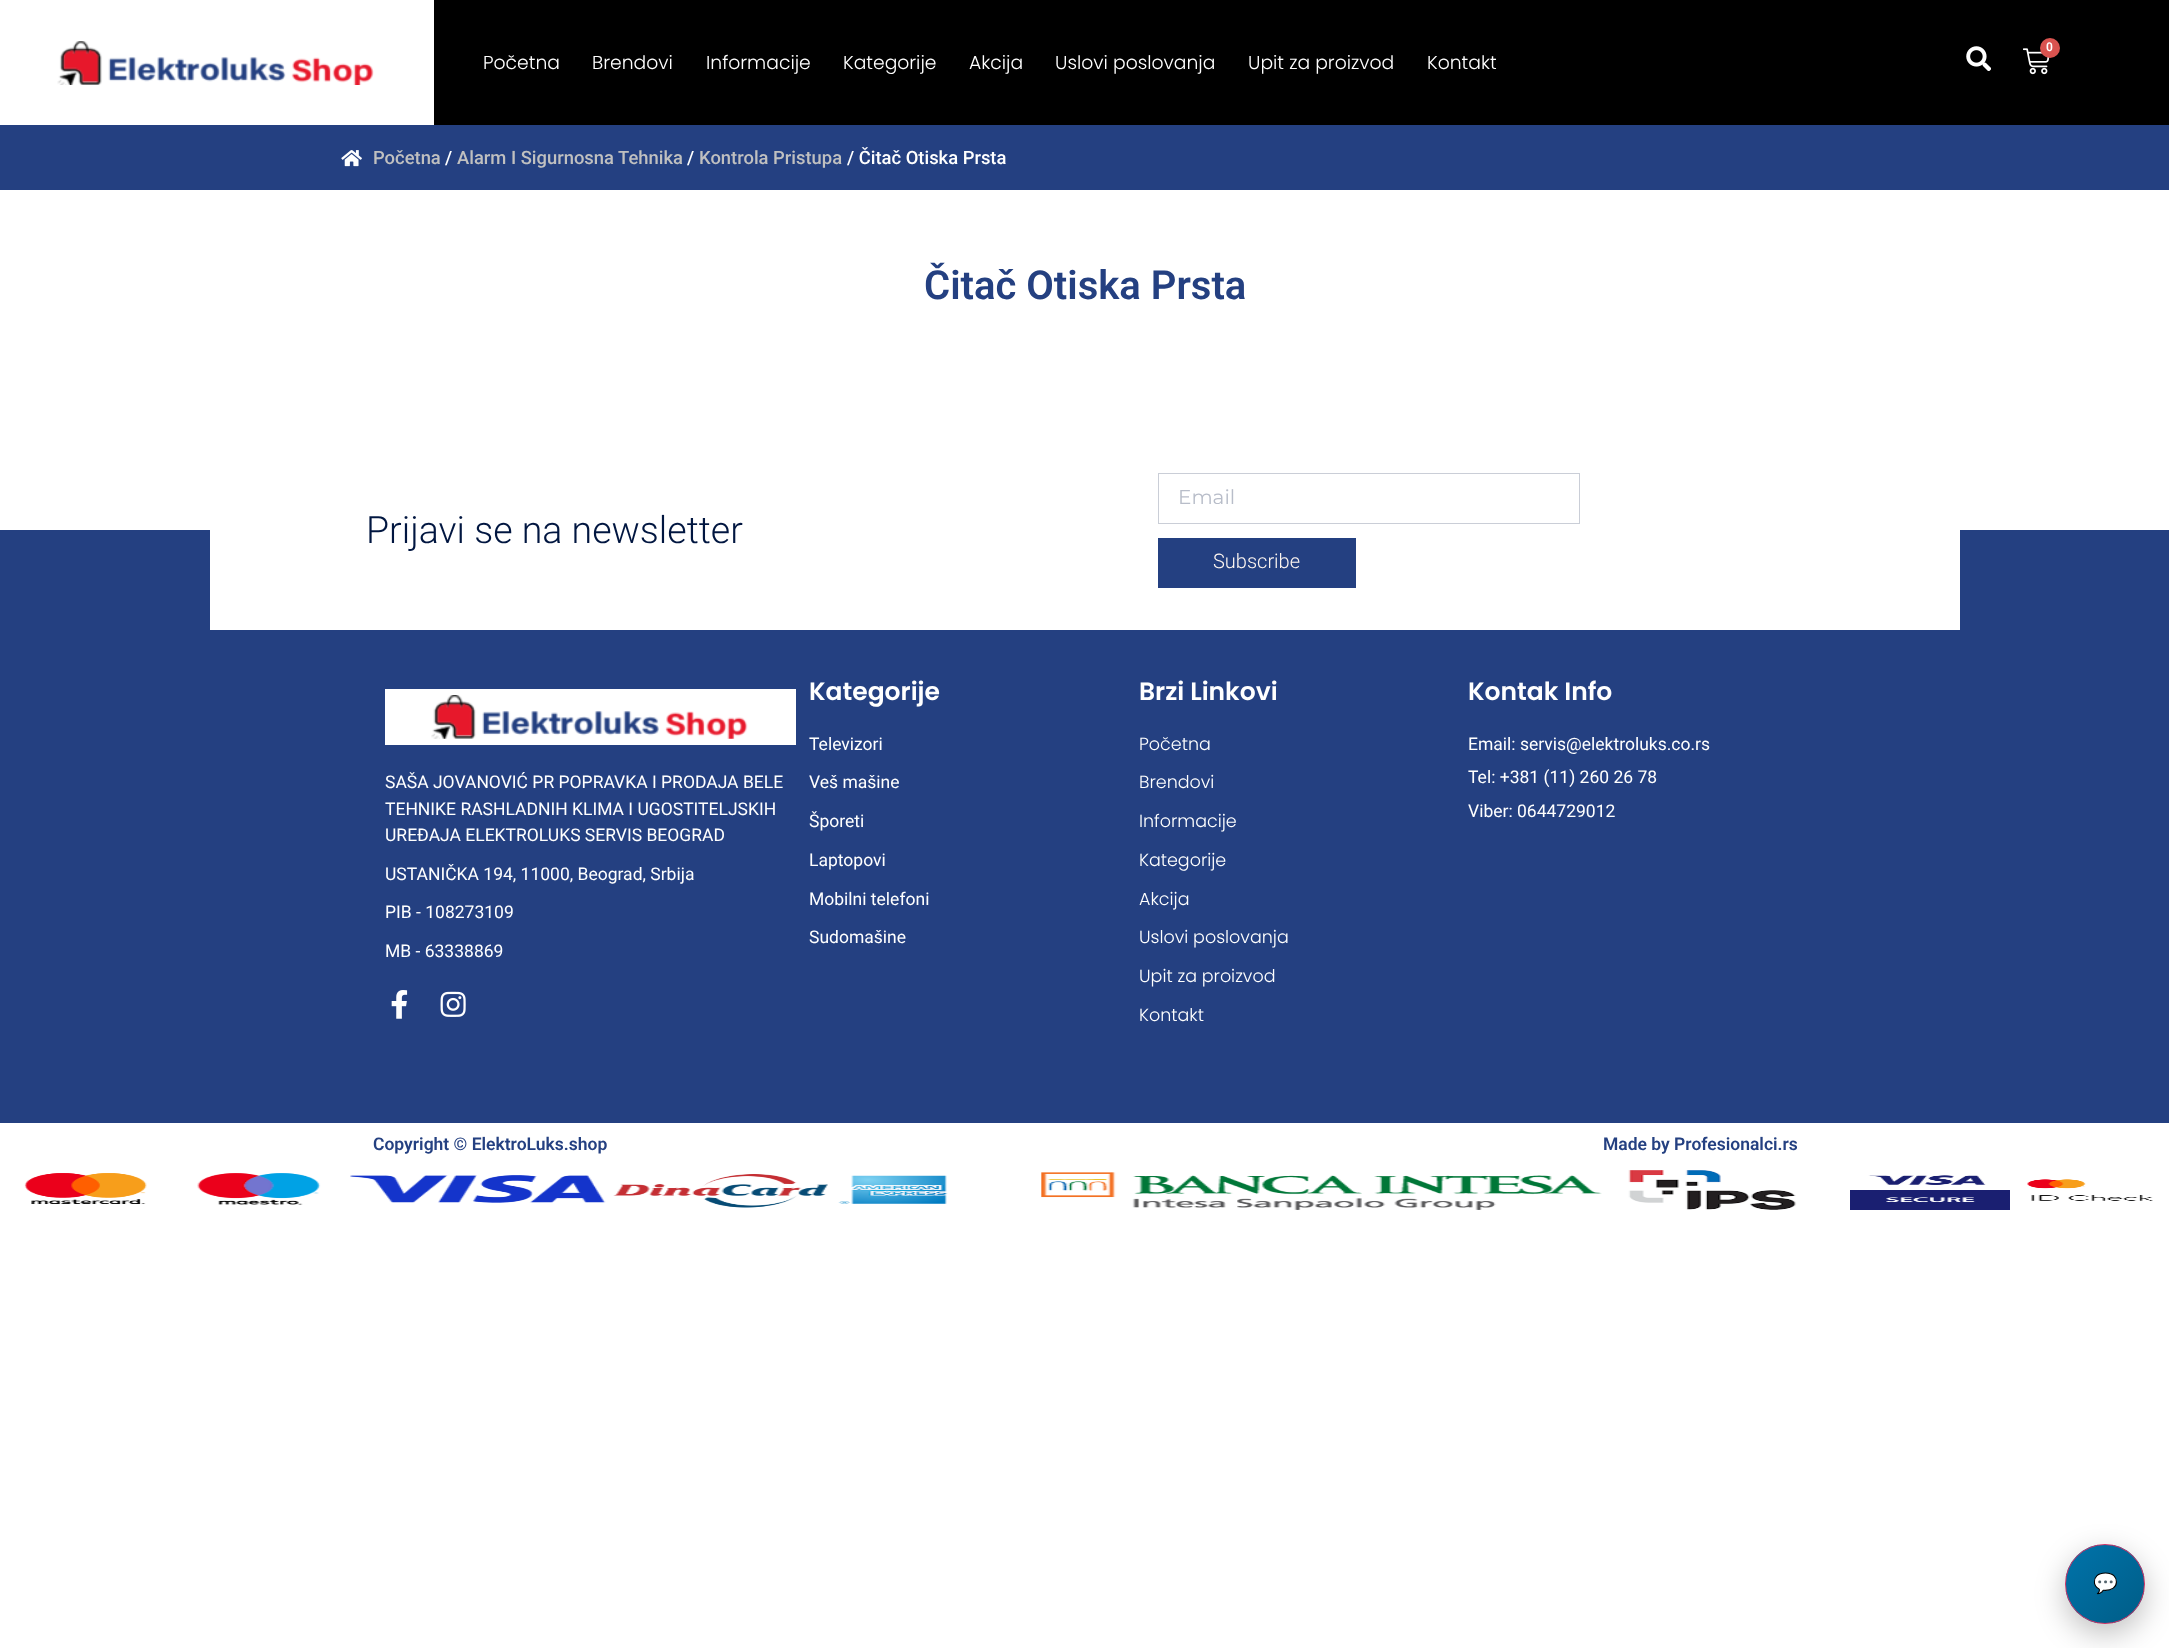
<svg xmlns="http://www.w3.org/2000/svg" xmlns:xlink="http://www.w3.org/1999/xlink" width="2169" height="1648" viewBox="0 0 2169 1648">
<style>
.cls-1{font:600 12px Roboto;fill:#ffffff}
.cls-2{font:300 18.75px Poppins;fill:#ffffff}
.cls-3{font:500 18.4px Roboto;fill:#c0c0c0}
.cls-4{font:500 18.4px Roboto;fill:#ffffff}
.cls-5{font:600 40px Roboto;fill:#244081}
.cls-6{font:300 37.5px Roboto;fill:#011640}
.cls-7{font:20px Montserrat;fill:#b8bdc9}
.cls-8{font:300 20px Roboto;fill:#fff7f1}
.cls-9{font:600 25px Poppins;fill:#ffffff}
.cls-10{font:17.5px Roboto;fill:#ffffff}
.cls-11{font:300 17.5px Poppins;fill:#ffffff}
.cls-12{font:600 17.5px Roboto;fill:#244081}
.cls-13{font:20px Noto Color Emoji;fill:#cc3366}
</style>
<defs>
<clipPath id="clip1"><rect x="2065" y="1544" width="80" height="80" rx="40"/></clipPath>
<linearGradient id="g1" gradientUnits="userSpaceOnUse" x1="2066" y1="1545" x2="2144" y2="1623"><stop offset="0" stop-color="#0073aa"/><stop offset="1" stop-color="#005d87"/></linearGradient>
</defs>
<rect width="100%" height="100%" fill="#ffffff"/>
<image xlink:href="image0.png" x="57" y="41" width="317" height="44"/>
<rect fill="#000000" x="434" y="0" width="1735" height="125"/>
<image xlink:href="image1.png" x="1966" y="46" width="25" height="25"/>
<image xlink:href="image2.png" x="2023" y="48" width="27" height="27"/>
<circle fill="#d9534f" cx="2050" cy="48" r="10"/>
<rect fill="#244081" x="0" y="125" width="2169" height="65"/>
<image xlink:href="image3.png" x="341" y="150" width="21" height="17"/>
<rect fill="#244081" x="0" y="530" width="2169" height="593"/>
<rect fill="#ffffff" x="210" y="530" width="1750" height="100"/>
<rect fill="none" stroke="#caced7" x="1158.5" y="473.5" width="421" height="50"/>
<rect fill="#244081" x="1158" y="538" width="198" height="50"/>
<rect fill="#ffffff" x="385" y="689" width="411" height="56"/>
<image xlink:href="image4.png" x="431" y="695" width="317" height="44"/>
<image xlink:href="image5.png" x="391" y="990" width="17" height="29"/>
<image xlink:href="image6.png" x="440" y="991" width="26" height="26"/>
<image xlink:href="image7.png" x="24" y="1173" width="123" height="31"/>
<image xlink:href="image8.png" x="197" y="1173" width="124" height="32"/>
<image xlink:href="image9.png" x="350" y="1175" width="256" height="28"/>
<image xlink:href="image10.png" x="613" y="1174" width="215" height="34"/>
<image xlink:href="image11.png" x="838" y="1175" width="110" height="29"/>
<image xlink:href="image12.png" x="1041" y="1172" width="561" height="38"/>
<image xlink:href="image13.png" x="1628" y="1170" width="169" height="40"/>
<image xlink:href="image14.png" x="1850" y="1175" width="160" height="35"/>
<image xlink:href="image15.png" x="2027" y="1179" width="126" height="22"/>
<rect fill="#000000" fill-opacity="0.25" filter="blur(15px)" x="2065" y="1554" width="80" height="80" rx="40"/>
<g clip-path="url(#clip1)">
<rect fill="url(#g1)" x="2066" y="1545" width="78" height="78"/>
</g>
<circle fill="none" stroke="#cc3366" cx="2105" cy="1584" r="39.5"/>
<text class="cls-1" x="2046" y="51">0</text>
<text class="cls-2" x="483" y="69">Početna</text>
<text class="cls-2" x="592" y="69">Brendovi</text>
<text class="cls-2" x="706" y="69">Informacije</text>
<text class="cls-2" x="843" y="69">Kategorije</text>
<text class="cls-2" x="969" y="69">Akcija</text>
<text class="cls-2" x="1055" y="69">Uslovi poslovanja</text>
<text class="cls-2" x="1248" y="69">Upit za proizvod</text>
<text class="cls-2" x="1427" y="69">Kontakt</text>
<text class="cls-3" x="373" y="164">Početna</text>
<text class="cls-4" x="445" y="164">/</text>
<text class="cls-3" x="457" y="164">Alarm I Sigurnosna Tehnika</text>
<text class="cls-4" x="687" y="164">/</text>
<text class="cls-3" x="699" y="164">Kontrola Pristupa</text>
<text class="cls-4" x="847" y="164">/ Čitač Otiska Prsta</text>
<text class="cls-5" x="924" y="299">Čitač Otiska Prsta</text>
<text class="cls-6" x="366" y="543">Prijavi se na newsletter</text>
<text class="cls-7" x="1178" y="504">Email</text>
<text class="cls-8" x="1213" y="568">Subscribe</text>
<text class="cls-9" x="809" y="700">Kategorije</text>
<text class="cls-10" x="809" y="750">Televizori</text>
<text class="cls-10" x="809" y="788">Veš mašine</text>
<text class="cls-10" x="809" y="827">Šporeti</text>
<text class="cls-10" x="809" y="866">Laptopovi</text>
<text class="cls-10" x="809" y="905">Mobilni telefoni</text>
<text class="cls-10" x="809" y="943">Sudomašine</text>
<text class="cls-9" x="1139" y="700">Brzi Linkovi</text>
<text class="cls-11" x="1139" y="750">Početna</text>
<text class="cls-11" x="1139" y="788">Brendovi</text>
<text class="cls-11" x="1139" y="827">Informacije</text>
<text class="cls-11" x="1139" y="866">Kategorije</text>
<text class="cls-11" x="1139" y="905">Akcija</text>
<text class="cls-11" x="1139" y="943">Uslovi poslovanja</text>
<text class="cls-11" x="1139" y="982">Upit za proizvod</text>
<text class="cls-11" x="1139" y="1021">Kontakt</text>
<text class="cls-9" x="1468" y="700">Kontak Info</text>
<text class="cls-10"><tspan x="1468" y="750">Email: servis@elektroluks.co.rs</tspan><tspan x="1468" y="783">Tel: +381 (11) 260 26 78</tspan><tspan x="1468" y="817">Viber: 0644729012</tspan></text>
<text class="cls-10"><tspan x="385" y="788">SAŠA JOVANOVIĆ PR POPRAVKA I PRODAJA BELE</tspan><tspan x="385" y="815">TEHNIKE RASHLADNIH KLIMA I UGOSTITELJSKIH</tspan><tspan x="385" y="841">UREĐAJA ELEKTROLUKS SERVIS BEOGRAD</tspan></text>
<text class="cls-10" x="385" y="880">USTANIČKA 194, 11000, Beograd, Srbija</text>
<text class="cls-10" x="385" y="918">PIB - 108273109</text>
<text class="cls-10" x="385" y="957">MB - 63338869</text>
<text class="cls-12" x="373" y="1150">Copyright © ElektroLuks.shop</text>
<text class="cls-12" x="1603" y="1150">Made by Profesionalci.rs</text>
<text class="cls-13" x="2093" y="1590">💬</text>
</svg>
